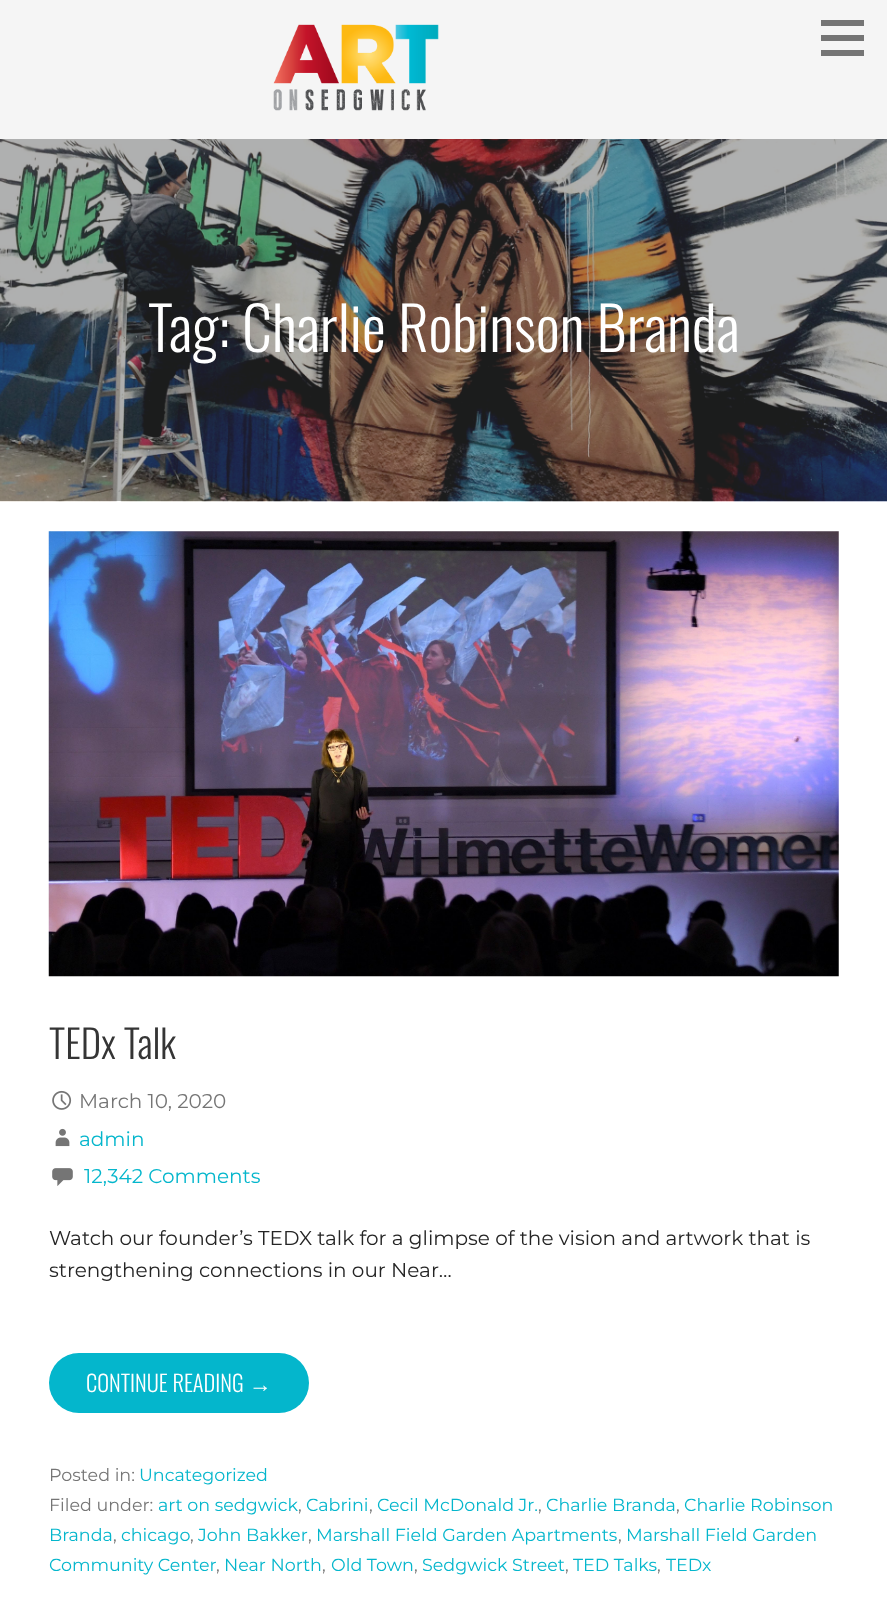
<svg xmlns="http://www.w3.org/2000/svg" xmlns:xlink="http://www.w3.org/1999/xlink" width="887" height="1617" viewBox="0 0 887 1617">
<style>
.cls-1{font:300 60px Oswald;fill:#ffffff}
.cls-2{font:300 39px Oswald;fill:#353535}
.cls-3{font:20px Montserrat;fill:#757575}
.cls-4{font:20px Montserrat;fill:#04b6cc}
.cls-5{font:20px Montserrat;fill:#252525}
.cls-6{font:300 22.5px Oswald;fill:#ffffff}
.cls-7{font:22.5px Liberation Sans;fill:#ffffff}
.cls-8{font:17.5px Montserrat;fill:#757575}
.cls-9{font:17.5px Montserrat;fill:#04b6cc}
</style>
<rect width="100%" height="100%" fill="#ffffff"/>
<image xlink:href="image0.png" x="0" y="139" width="887" height="363"/>
<rect fill="#f5f5f5" x="0" y="0" width="887" height="139"/>
<image xlink:href="image1.png" x="273" y="24" width="166" height="87"/>
<rect fill="#757575" x="821" y="20" width="43" height="6"/>
<rect fill="#757575" x="821" y="35" width="43" height="6"/>
<rect fill="#757575" x="821" y="50" width="43" height="6"/>
<image xlink:href="image2.png" x="48" y="531" width="791" height="446"/>
<image xlink:href="image3.png" x="52" y="1090" width="20" height="20"/>
<image xlink:href="image4.png" x="55" y="1128" width="15" height="19"/>
<image xlink:href="image5.png" x="52" y="1168" width="21" height="18"/>
<rect fill="#04b6cc" x="49" y="1353" width="260" height="60" rx="30"/>
<text class="cls-1" x="148" y="352">Tag: Charlie Robinson Branda</text>
<text class="cls-2" x="49" y="1059">TEDx Talk</text>
<text class="cls-3" x="79" y="1108">March 10, 2020</text>
<text class="cls-4" x="79" y="1146">admin</text>
<text class="cls-4" x="84" y="1183">12,342 Comments</text>
<text class="cls-5"><tspan x="49" y="1245">Watch our founder’s TEDX talk for a glimpse of the vision and artwork that is</tspan><tspan x="49" y="1277">strengthening connections in our Near…</tspan></text>
<text class="cls-6" x="86" y="1392">CONTINUE READING</text>
<text class="cls-7" x="249" y="1392">→</text>
<text class="cls-8" x="49" y="1481">Posted in:</text>
<text class="cls-9" x="139" y="1481">Uncategorized</text>
<text class="cls-8" x="49" y="1511">Filed under:</text>
<text class="cls-9" x="158" y="1511">art on sedgwick</text>
<text class="cls-8" x="298" y="1511">,</text>
<text class="cls-9" x="306" y="1511">Cabrini</text>
<text class="cls-8" x="369" y="1511">,</text>
<text class="cls-9" x="377" y="1511">Cecil McDonald Jr.</text>
<text class="cls-8" x="538" y="1511">,</text>
<text class="cls-9" x="546" y="1511">Charlie Branda</text>
<text class="cls-8" x="676" y="1511">,</text>
<text class="cls-9" x="684" y="1511">Charlie Robinson</text>
<text class="cls-9" x="49" y="1541">Branda</text>
<text class="cls-8" x="113" y="1541">,</text>
<text class="cls-9" x="121" y="1541">chicago</text>
<text class="cls-8" x="190" y="1541">,</text>
<text class="cls-9" x="198" y="1541">John Bakker</text>
<text class="cls-8" x="308" y="1541">,</text>
<text class="cls-9" x="316" y="1541">Marshall Field Garden Apartments</text>
<text class="cls-8" x="618" y="1541">,</text>
<text class="cls-9" x="626" y="1541">Marshall Field Garden</text>
<text class="cls-9" x="49" y="1571">Community Center</text>
<text class="cls-9" x="224" y="1571">Near North</text>
<text class="cls-9" x="331" y="1571">Old Town</text>
<text class="cls-9" x="422" y="1571">Sedgwick Street</text>
<text class="cls-9" x="573" y="1571">TED Talks</text>
<text class="cls-9" x="666" y="1571">TEDx</text>
<text class="cls-8" x="216" y="1571">,</text>
<text class="cls-8" x="322" y="1571">,</text>
<text class="cls-8" x="414" y="1571">,</text>
<text class="cls-8" x="565" y="1571">,</text>
<text class="cls-8" x="657" y="1571">,</text>
</svg>
